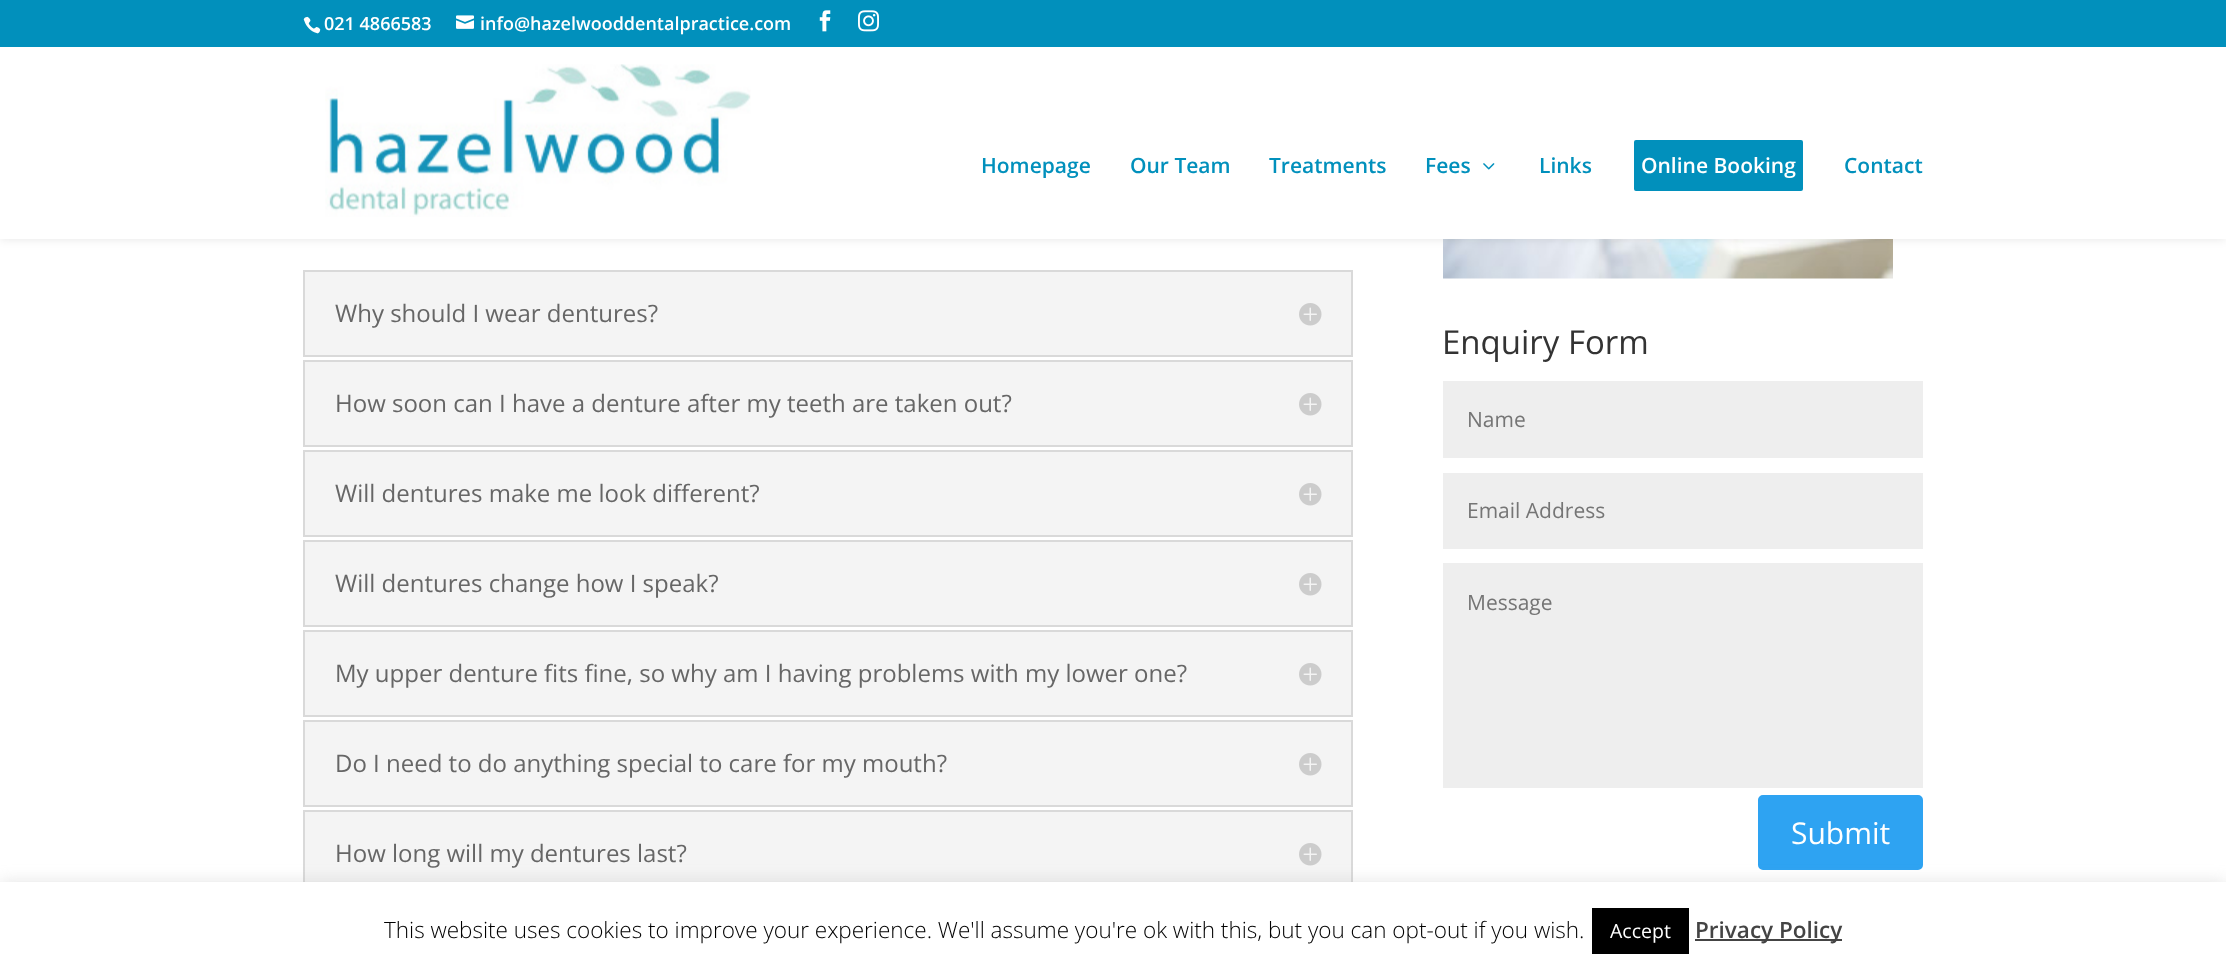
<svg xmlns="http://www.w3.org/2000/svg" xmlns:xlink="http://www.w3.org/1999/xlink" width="2226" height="972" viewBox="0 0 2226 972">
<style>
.cls-1{font:600 18px Open Sans;fill:#ffffff}
.cls-2{font:600 21px Open Sans;fill:#0190bc}
.cls-3{font:600 21px Open Sans;fill:#ffffff}
.cls-4{font:24px Open Sans;fill:#666666}
.cls-5{font:33px Open Sans;fill:#333333}
.cls-6{font:21px Open Sans;fill:#757575}
.cls-7{font:30px Open Sans;fill:#ffffff}
.cls-8{font:300 22.5px Open Sans;fill:#000000}
.cls-9{font:19.5px Open Sans;fill:#ffffff}
.cls-10{font:600 22.5px Open Sans;fill:#444444}
</style>
<rect width="100%" height="100%" fill="#ffffff"/>
<image xlink:href="image7.png" x="1443" y="239" width="450" height="40"/>
<rect fill="#000000" fill-opacity="0.1" filter="blur(5px)" x="0" y="47" width="2226" height="192"/>
<rect fill="#0190bc" x="0" y="0" width="2226" height="47"/>
<image xlink:href="image0.png" x="303" y="16" width="18" height="18"/>
<image xlink:href="image1.png" x="456" y="15" width="18" height="14"/>
<image xlink:href="image2.png" x="819" y="10" width="12" height="22"/>
<image xlink:href="image3.png" x="858" y="10" width="21" height="22"/>
<rect fill="#ffffff" x="0" y="47" width="2226" height="192"/>
<image xlink:href="image4.png" x="325" y="64" width="426" height="153"/>
<image xlink:href="image5.png" x="1483" y="163" width="12" height="7"/>
<rect fill="#0190bc" stroke="#ffffff" stroke-width="3" x="1632.5" y="138.5" width="172" height="54" rx="3.5"/>
<rect fill="#f4f4f4" stroke="#d9d9d9" stroke-width="2" x="304" y="271" width="1048" height="85"/>
<image xlink:href="image6.png" x="1299" y="303" width="23" height="23"/>
<rect fill="#f4f4f4" stroke="#d9d9d9" stroke-width="2" x="304" y="361" width="1048" height="85"/>
<image xlink:href="image6.png" x="1299" y="393" width="23" height="23"/>
<rect fill="#f4f4f4" stroke="#d9d9d9" stroke-width="2" x="304" y="451" width="1048" height="85"/>
<image xlink:href="image6.png" x="1299" y="483" width="23" height="23"/>
<rect fill="#f4f4f4" stroke="#d9d9d9" stroke-width="2" x="304" y="541" width="1048" height="85"/>
<image xlink:href="image6.png" x="1299" y="573" width="23" height="23"/>
<rect fill="#f4f4f4" stroke="#d9d9d9" stroke-width="2" x="304" y="631" width="1048" height="85"/>
<image xlink:href="image6.png" x="1299" y="663" width="23" height="23"/>
<rect fill="#f4f4f4" stroke="#d9d9d9" stroke-width="2" x="304" y="721" width="1048" height="85"/>
<image xlink:href="image6.png" x="1299" y="753" width="23" height="23"/>
<rect fill="#f4f4f4" x="305" y="812" width="1046" height="70"/>
<rect fill="none" stroke="#d9d9d9" stroke-width="2" x="304" y="811" width="1048" height="85"/>
<image xlink:href="image6.png" x="1299" y="843" width="23" height="23"/>
<rect fill="#eeeeee" x="1443" y="381" width="480" height="77"/>
<rect fill="#eeeeee" x="1443" y="473" width="480" height="76"/>
<rect fill="#eeeeee" x="1443" y="563" width="480" height="225"/>
<rect fill="#2ea3f2" stroke="#2ea3f2" stroke-width="3" x="1759.5" y="796.5" width="162" height="72" rx="3.5"/>
<rect fill="#acabab" fill-opacity="0.3" filter="blur(7.5px)" x="0" y="881" width="2226" height="90"/>
<rect fill="#ffffff" x="0" y="882" width="2226" height="90"/>
<rect fill="#000000" x="1592" y="908" width="97" height="46"/>
<rect fill="#444444" x="1695" y="939" width="147" height="2"/>
<text class="cls-1" x="324" y="30">021 4866583</text>
<text class="cls-1" x="480" y="30">info@hazelwooddentalpractice.com</text>
<text class="cls-2" x="981" y="173">Homepage</text>
<text class="cls-2" x="1130" y="173">Our Team</text>
<text class="cls-2" x="1269" y="173">Treatments</text>
<text class="cls-2" x="1425" y="173">Fees</text>
<text class="cls-2" x="1539" y="173">Links</text>
<text class="cls-3" x="1641" y="173">Online Booking</text>
<text class="cls-2" x="1844" y="173">Contact</text>
<text class="cls-4" x="335" y="322">Why should I wear dentures?</text>
<text class="cls-4" x="335" y="412">How soon can I have a denture after my teeth are taken out?</text>
<text class="cls-4" x="335" y="502">Will dentures make me look different?</text>
<text class="cls-4" x="335" y="592">Will dentures change how I speak?</text>
<text class="cls-4" x="335" y="682">My upper denture fits fine, so why am I having problems with my lower one?</text>
<text class="cls-4" x="335" y="772">Do I need to do anything special to care for my mouth?</text>
<text class="cls-4" x="335" y="862">How long will my dentures last?</text>
<text class="cls-5" x="1442" y="354">Enquiry Form</text>
<text class="cls-6" x="1467" y="427">Name</text>
<text class="cls-6" x="1467" y="518">Email Address</text>
<text class="cls-6" x="1467" y="610">Message</text>
<text class="cls-7" x="1791" y="844">Submit</text>
<text class="cls-8" x="384" y="938">This website uses cookies to improve your experience. We'll assume you're ok with this, but you can opt-out if you wish.</text>
<text class="cls-9" x="1610" y="938">Accept</text>
<text class="cls-10" x="1695" y="938">Privacy Policy</text>
</svg>
